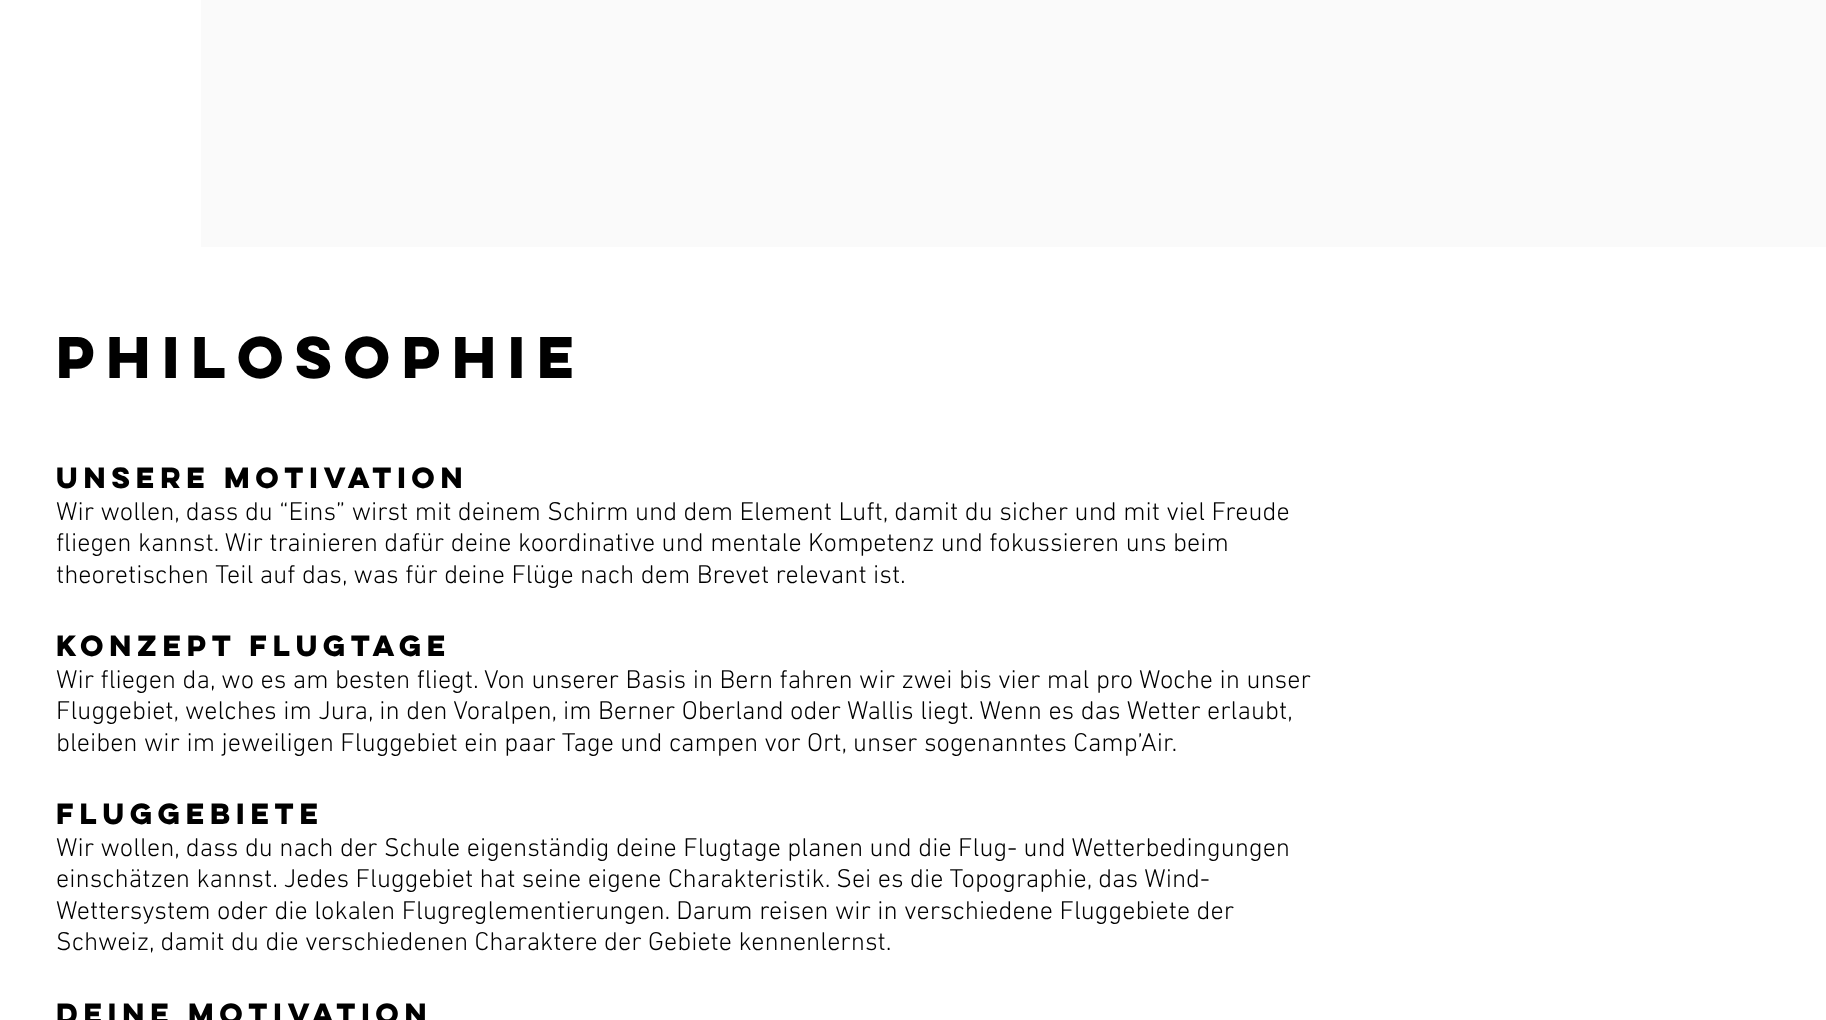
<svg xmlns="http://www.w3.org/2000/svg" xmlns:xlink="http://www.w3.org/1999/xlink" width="1826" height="1020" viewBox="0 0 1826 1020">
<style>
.cls-1{font:bold 52.5px 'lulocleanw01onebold';fill:#000000}
.cls-2{font:bold 26.25px 'lulocleanw01onebold';fill:#000000}
.cls-3{font:300 26.25px 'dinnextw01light';fill:#000000}
</style>
<rect width="100%" height="100%" fill="#ffffff"/>
<rect fill="#fafafa" x="201" y="0" width="1625" height="247"/>
<text class="cls-1" x="56" y="378">Philosophie</text>
<text class="cls-2" x="56" y="488">Unsere Motivation</text>
<text class="cls-3"><tspan x="56" y="520">Wir wollen, dass du “Eins” wirst mit deinem Schirm und dem Element Luft, damit du sicher und mit viel Freude</tspan><tspan x="56" y="551">fliegen kannst. Wir trainieren dafür deine koordinative und mentale Kompetenz und fokussieren uns beim</tspan><tspan x="56" y="583">theoretischen Teil auf das, was für deine Flüge nach dem Brevet relevant ist.</tspan></text>
<text class="cls-2" x="56" y="656">Konzept Flugtage</text>
<text class="cls-3"><tspan x="56" y="688">Wir fliegen da, wo es am besten fliegt. Von unserer Basis in Bern fahren wir zwei bis vier mal pro Woche in unser</tspan><tspan x="56" y="719">Fluggebiet, welches im Jura, in den Voralpen, im Berner Oberland oder Wallis liegt. Wenn es das Wetter erlaubt,</tspan><tspan x="56" y="751">bleiben wir im jeweiligen Fluggebiet ein paar Tage und campen vor Ort, unser sogenanntes Camp’Air.</tspan></text>
<text class="cls-2" x="56" y="824">Fluggebiete</text>
<text class="cls-3"><tspan x="56" y="856">Wir wollen, dass du nach der Schule eigenständig deine Flugtage planen und die Flug- und Wetterbedingungen</tspan><tspan x="56" y="887">einschätzen kannst. Jedes Fluggebiet hat seine eigene Charakteristik. Sei es die Topographie, das Wind-</tspan><tspan x="56" y="919">Wettersystem oder die lokalen Flugreglementierungen. Darum reisen wir in verschiedene Fluggebiete der</tspan><tspan x="56" y="950">Schweiz, damit du die verschiedenen Charaktere der Gebiete kennenlernst.</tspan></text>
<text class="cls-2" x="56" y="1024">Deine Motivation</text>
</svg>
